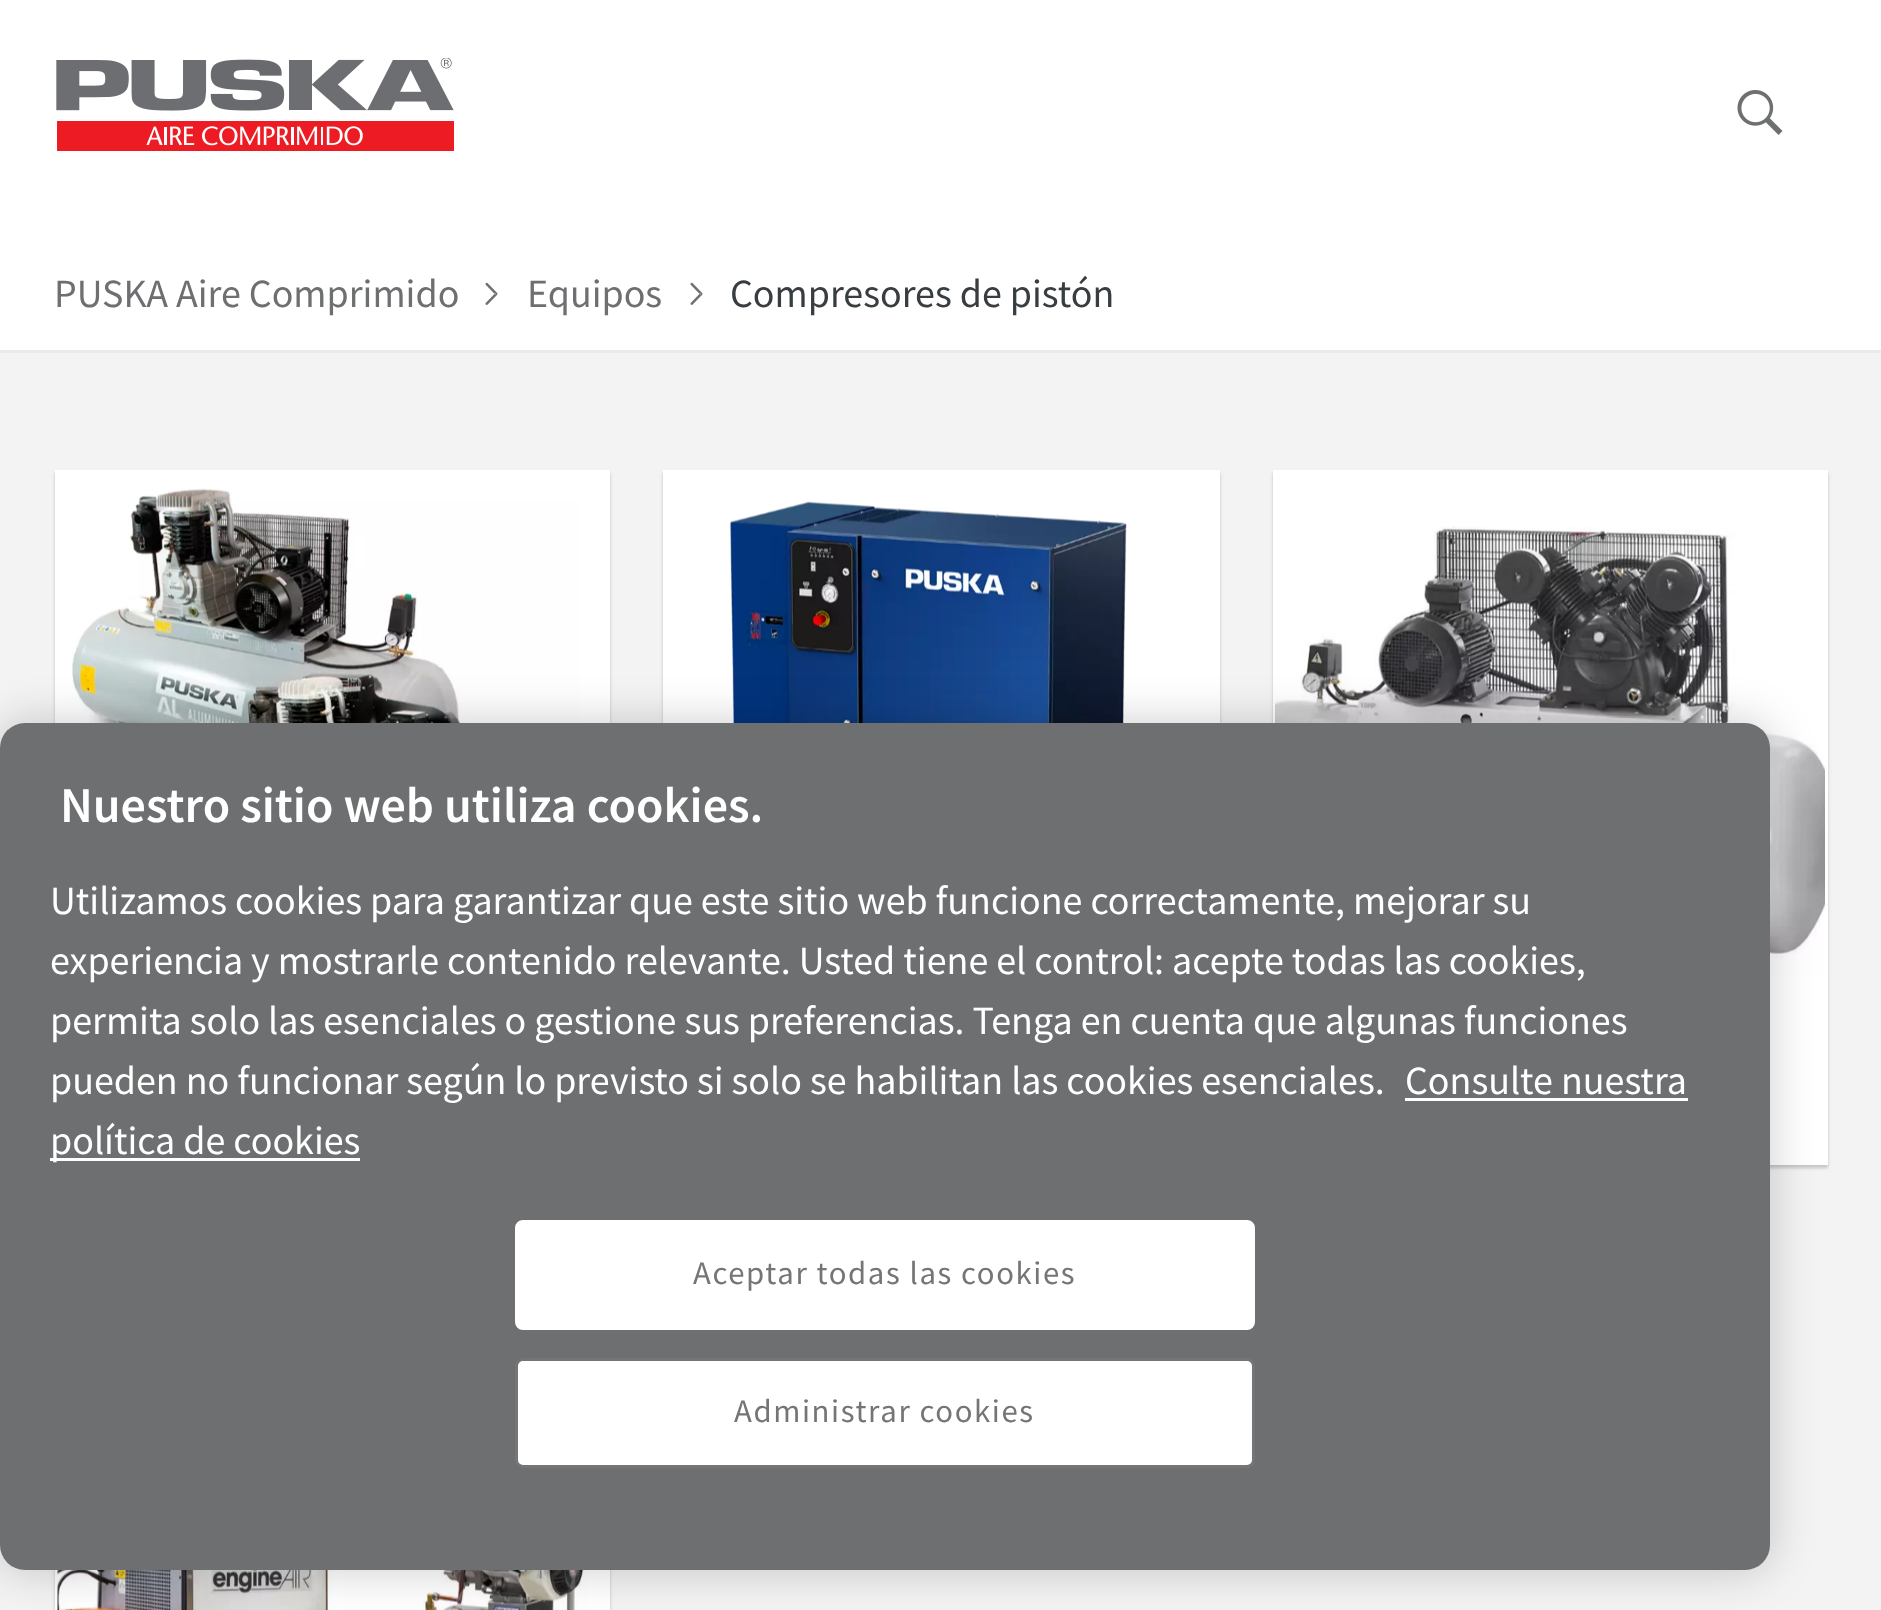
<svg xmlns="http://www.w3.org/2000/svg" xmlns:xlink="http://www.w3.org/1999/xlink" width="1881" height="1610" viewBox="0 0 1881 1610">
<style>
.cls-1{font:40px Source Sans Pro;fill:#6d6f71}
.cls-2{font:40px Source Sans Pro;fill:#373d41}
.cls-3{font:600 50px Source Sans Pro;fill:#ffffff}
.cls-4{font:40px Source Sans Pro;fill:#ffffff}
.cls-5{font:32.75px Source Sans Pro;letter-spacing:1.6px;fill:#737577}
</style>
<rect width="100%" height="100%" fill="#ffffff"/>
<image xlink:href="image0.png" x="56" y="58" width="398" height="93"/>
<image xlink:href="image1.png" x="1737" y="90" width="46" height="45"/>
<image xlink:href="image2.png" x="485" y="282" width="13" height="23"/>
<image xlink:href="image2.png" x="690" y="282" width="13" height="23"/>
<rect fill="#f3f3f3" x="0" y="353" width="1881" height="1257"/>
<rect fill="#ebebec" x="0" y="350" width="1881" height="3"/>
<rect fill="#0d0d0d" fill-opacity="0.1" filter="blur(1px)" x="55" y="473" width="555" height="695"/>
<rect fill="#0d0d0d" fill-opacity="0.1" filter="blur(2px)" x="55" y="473" width="555" height="695"/>
<rect fill="#ffffff" x="55" y="470" width="555" height="253"/>
<image xlink:href="image3.png" x="72" y="488" width="507" height="235"/>
<rect fill="#0d0d0d" fill-opacity="0.1" filter="blur(1px)" x="663" y="473" width="557" height="695"/>
<rect fill="#0d0d0d" fill-opacity="0.1" filter="blur(2px)" x="663" y="473" width="557" height="695"/>
<rect fill="#ffffff" x="663" y="470" width="557" height="253"/>
<image xlink:href="image4.png" x="730" y="501" width="397" height="222"/>
<rect fill="#0d0d0d" fill-opacity="0.1" filter="blur(1px)" x="1273" y="473" width="555" height="695"/>
<rect fill="#0d0d0d" fill-opacity="0.1" filter="blur(2px)" x="1273" y="473" width="555" height="695"/>
<rect fill="#ffffff" x="1273" y="470" width="555" height="505"/>
<image xlink:href="image5.png" x="1275" y="526" width="550" height="449"/>
<rect fill="#ffffff" x="1770" y="975" width="58" height="190"/>
<rect fill="#0d0d0d" fill-opacity="0.1" filter="blur(1px)" x="55" y="1265" width="555" height="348"/>
<rect fill="#0d0d0d" fill-opacity="0.1" filter="blur(2px)" x="55" y="1265" width="555" height="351"/>
<rect fill="#ffffff" x="55" y="1570" width="555" height="40"/>
<image xlink:href="image6.png" x="57" y="1570" width="529" height="40"/>
<rect fill="#000000" fill-opacity="0.2" filter="blur(22.5px)" x="0" y="723" width="1770" height="847" rx="25"/>
<rect fill="#6d6f71" x="0" y="723" width="1770" height="847" rx="25"/>
<rect fill="#ffffff" x="1405" y="1098" width="283" height="3"/>
<rect fill="#ffffff" x="50" y="1158" width="310" height="3"/>
<rect fill="#ffffff" stroke="#ffffff" stroke-width="3" x="516.5" y="1221.5" width="737" height="107" rx="6.5"/>
<rect fill="#ffffff" stroke="#737577" stroke-width="3" x="516.5" y="1359.5" width="737" height="107" rx="6.5"/>
<text class="cls-1" x="54" y="307">PUSKA Aire Comprimido</text>
<text class="cls-1" x="527" y="307">Equipos</text>
<text class="cls-2" x="730" y="307">Compresores de pistón</text>
<text class="cls-3" x="60" y="822">Nuestro sitio web utiliza cookies.</text>
<text class="cls-4"><tspan x="50" y="914">Utilizamos cookies para garantizar que este sitio web funcione correctamente, mejorar su</tspan><tspan x="50" y="974">experiencia y mostrarle contenido relevante. Usted tiene el control: acepte todas las cookies,</tspan><tspan x="50" y="1034">permita solo las esenciales o gestione sus preferencias. Tenga en cuenta que algunas funciones</tspan><tspan x="50" y="1094">pueden no funcionar según lo previsto si solo se habilitan las cookies esenciales.</tspan></text>
<text class="cls-4" x="1405" y="1094">Consulte nuestra</text>
<text class="cls-4" x="50" y="1154">política de cookies</text>
<text class="cls-5" x="693" y="1284">Aceptar todas las cookies</text>
<text class="cls-5" x="734" y="1422">Administrar cookies</text>
</svg>
